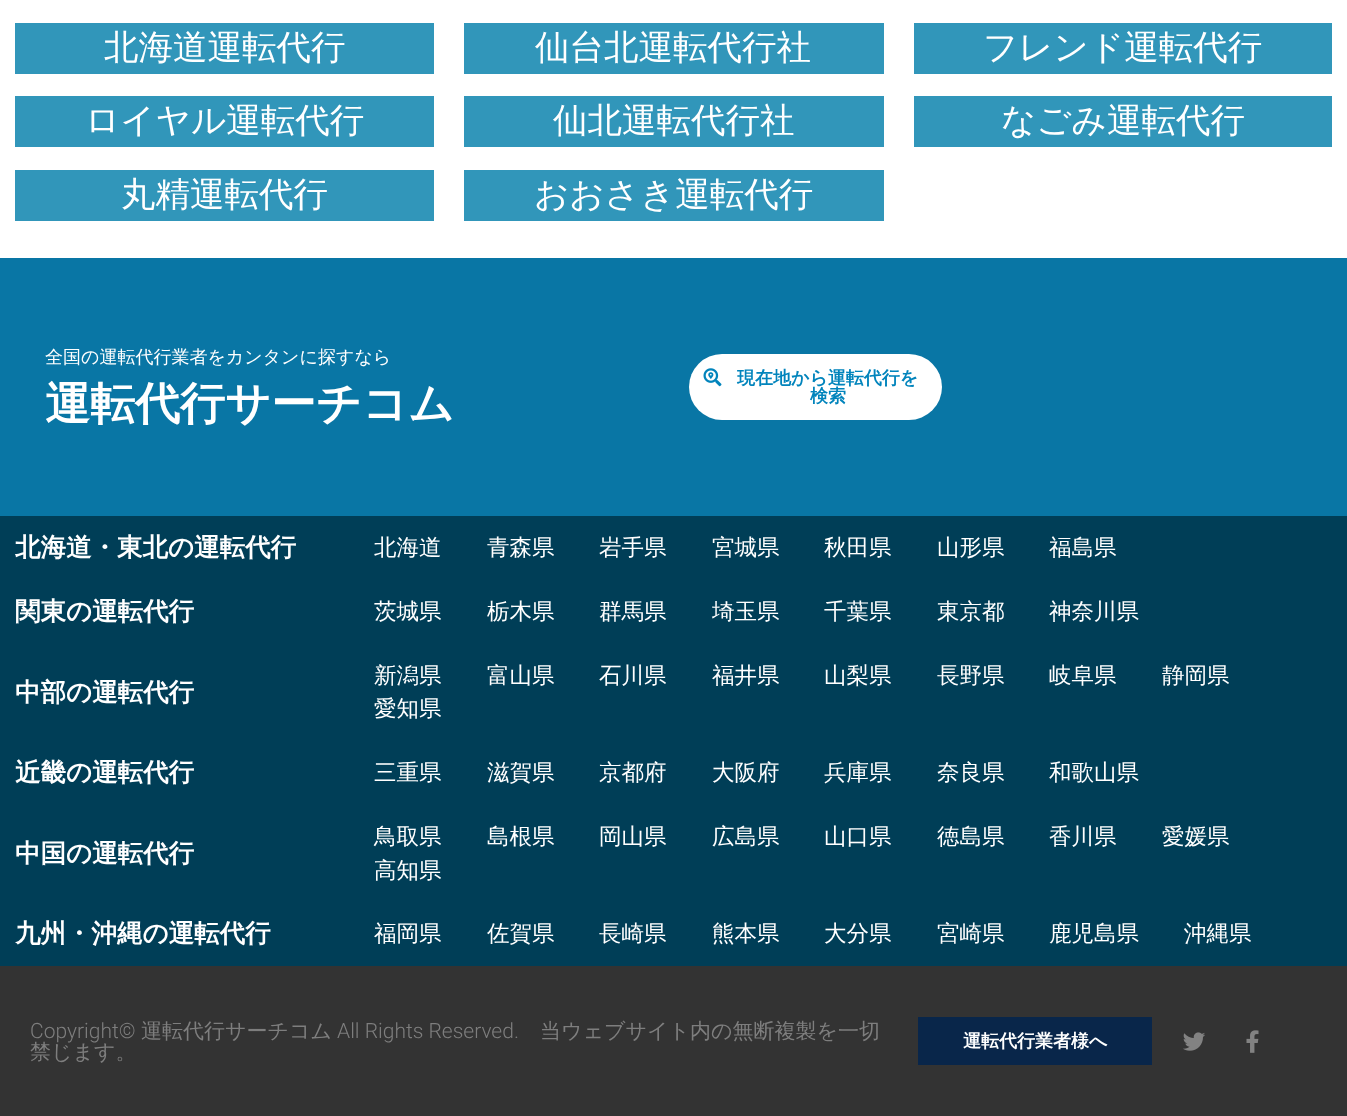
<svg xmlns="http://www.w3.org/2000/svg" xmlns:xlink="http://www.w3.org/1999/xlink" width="1347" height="1116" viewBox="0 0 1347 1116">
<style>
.cls-1{font:500 34.5px WenQuanYi Zen Hei;fill:#ffffff}
.cls-2{font:500 18px WenQuanYi Zen Hei;fill:#ffffff}
.cls-3{font:bold 45px WenQuanYi Zen Hei;fill:#ffffff}
.cls-4{font:bold 18px WenQuanYi Zen Hei;fill:#0184bc}
.cls-5{font:bold 25.5px WenQuanYi Zen Hei;fill:#ffffff}
.cls-6{font:500 22.5px WenQuanYi Zen Hei;fill:#ffffff}
.cls-7{font:300 21px Roboto;fill:#7e7e7e}
.cls-8{font:500 21px WenQuanYi Zen Hei;fill:#7e7e7e}
.cls-9{font:bold 18px WenQuanYi Zen Hei;fill:#ffffff}
</style>
<rect width="100%" height="100%" fill="#ffffff"/>
<rect fill="#3196ba" x="15" y="23" width="419" height="51"/>
<rect fill="#3196ba" x="464" y="23" width="420" height="51"/>
<rect fill="#3196ba" x="914" y="23" width="418" height="51"/>
<rect fill="#3196ba" x="15" y="96" width="419" height="51"/>
<rect fill="#3196ba" x="464" y="96" width="420" height="51"/>
<rect fill="#3196ba" x="914" y="96" width="418" height="51"/>
<rect fill="#3196ba" x="15" y="170" width="419" height="51"/>
<rect fill="#3196ba" x="464" y="170" width="420" height="51"/>
<rect fill="#0976a5" x="0" y="258" width="1347" height="258"/>
<rect fill="#ffffff" x="689" y="354" width="253" height="66" rx="33"/>
<image xlink:href="image0.png" x="703" y="368" width="19" height="19"/>
<rect fill="#003e57" x="0" y="516" width="1347" height="450"/>
<rect fill="#333333" x="0" y="966" width="1347" height="150"/>
<rect fill="#09264a" x="918" y="1017" width="234" height="48"/>
<image xlink:href="image1.png" x="1183" y="1032" width="22" height="19"/>
<image xlink:href="image2.png" x="1246" y="1030" width="13" height="23"/>
<text class="cls-1" x="104" y="59">北海道運転代行</text>
<text class="cls-1" x="535" y="59">仙台北運転代行社</text>
<text class="cls-1" x="983" y="59">フレンド運転代行</text>
<text class="cls-1" x="85" y="132">ロイヤル運転代行</text>
<text class="cls-1" x="553" y="132">仙北運転代行社</text>
<text class="cls-1" x="1001" y="132">なごみ運転代行</text>
<text class="cls-1" x="121" y="206">丸精運転代行</text>
<text class="cls-1" x="534" y="206">おおさき運転代行</text>
<text class="cls-2" x="45" y="363">全国の運転代行業者をカンタンに探すなら</text>
<text class="cls-3" x="45" y="419">運転代行サーチコム</text>
<text class="cls-4" x="737" y="384">現在地から運転代行を</text>
<text class="cls-4" x="810" y="402">検索</text>
<text class="cls-5" x="15" y="556">北海道・東北の運転代行</text>
<text class="cls-6" x="374" y="555">北海道</text>
<text class="cls-6" x="487" y="555">青森県</text>
<text class="cls-6" x="599" y="555">岩手県</text>
<text class="cls-6" x="712" y="555">宮城県</text>
<text class="cls-6" x="824" y="555">秋田県</text>
<text class="cls-6" x="937" y="555">山形県</text>
<text class="cls-6" x="1049" y="555">福島県</text>
<text class="cls-5" x="15" y="620">関東の運転代行</text>
<text class="cls-6" x="374" y="619">茨城県</text>
<text class="cls-6" x="487" y="619">栃木県</text>
<text class="cls-6" x="599" y="619">群馬県</text>
<text class="cls-6" x="712" y="619">埼玉県</text>
<text class="cls-6" x="824" y="619">千葉県</text>
<text class="cls-6" x="937" y="619">東京都</text>
<text class="cls-6" x="1049" y="619">神奈川県</text>
<text class="cls-5" x="15" y="701">中部の運転代行</text>
<text class="cls-6" x="374" y="683">新潟県</text>
<text class="cls-6" x="487" y="683">富山県</text>
<text class="cls-6" x="599" y="683">石川県</text>
<text class="cls-6" x="712" y="683">福井県</text>
<text class="cls-6" x="824" y="683">山梨県</text>
<text class="cls-6" x="937" y="683">長野県</text>
<text class="cls-6" x="1049" y="683">岐阜県</text>
<text class="cls-6" x="1162" y="683">静岡県</text>
<text class="cls-6" x="374" y="716">愛知県</text>
<text class="cls-5" x="15" y="781">近畿の運転代行</text>
<text class="cls-6" x="374" y="780">三重県</text>
<text class="cls-6" x="487" y="780">滋賀県</text>
<text class="cls-6" x="599" y="780">京都府</text>
<text class="cls-6" x="712" y="780">大阪府</text>
<text class="cls-6" x="824" y="780">兵庫県</text>
<text class="cls-6" x="937" y="780">奈良県</text>
<text class="cls-6" x="1049" y="780">和歌山県</text>
<text class="cls-5" x="15" y="862">中国の運転代行</text>
<text class="cls-6" x="374" y="844">鳥取県</text>
<text class="cls-6" x="487" y="844">島根県</text>
<text class="cls-6" x="599" y="844">岡山県</text>
<text class="cls-6" x="712" y="844">広島県</text>
<text class="cls-6" x="824" y="844">山口県</text>
<text class="cls-6" x="937" y="844">徳島県</text>
<text class="cls-6" x="1049" y="844">香川県</text>
<text class="cls-6" x="1162" y="844">愛媛県</text>
<text class="cls-6" x="374" y="878">高知県</text>
<text class="cls-5" x="15" y="942">九州・沖縄の運転代行</text>
<text class="cls-6" x="374" y="941">福岡県</text>
<text class="cls-6" x="487" y="941">佐賀県</text>
<text class="cls-6" x="599" y="941">長崎県</text>
<text class="cls-6" x="712" y="941">熊本県</text>
<text class="cls-6" x="824" y="941">大分県</text>
<text class="cls-6" x="937" y="941">宮崎県</text>
<text class="cls-6" x="1049" y="941">鹿児島県</text>
<text class="cls-6" x="1184" y="941">沖縄県</text>
<text class="cls-7" x="30" y="1038">Copyright©</text>
<text class="cls-8" x="141" y="1038">運転代行サーチコム</text>
<text class="cls-7" x="337" y="1038">All Rights Reserved.</text>
<text class="cls-8" x="540" y="1038">当ウェブサイト内の無断複製を一切</text>
<text class="cls-8" x="30" y="1059">禁じます。</text>
<text class="cls-9" x="963" y="1047">運転代行業者様へ</text>
</svg>
